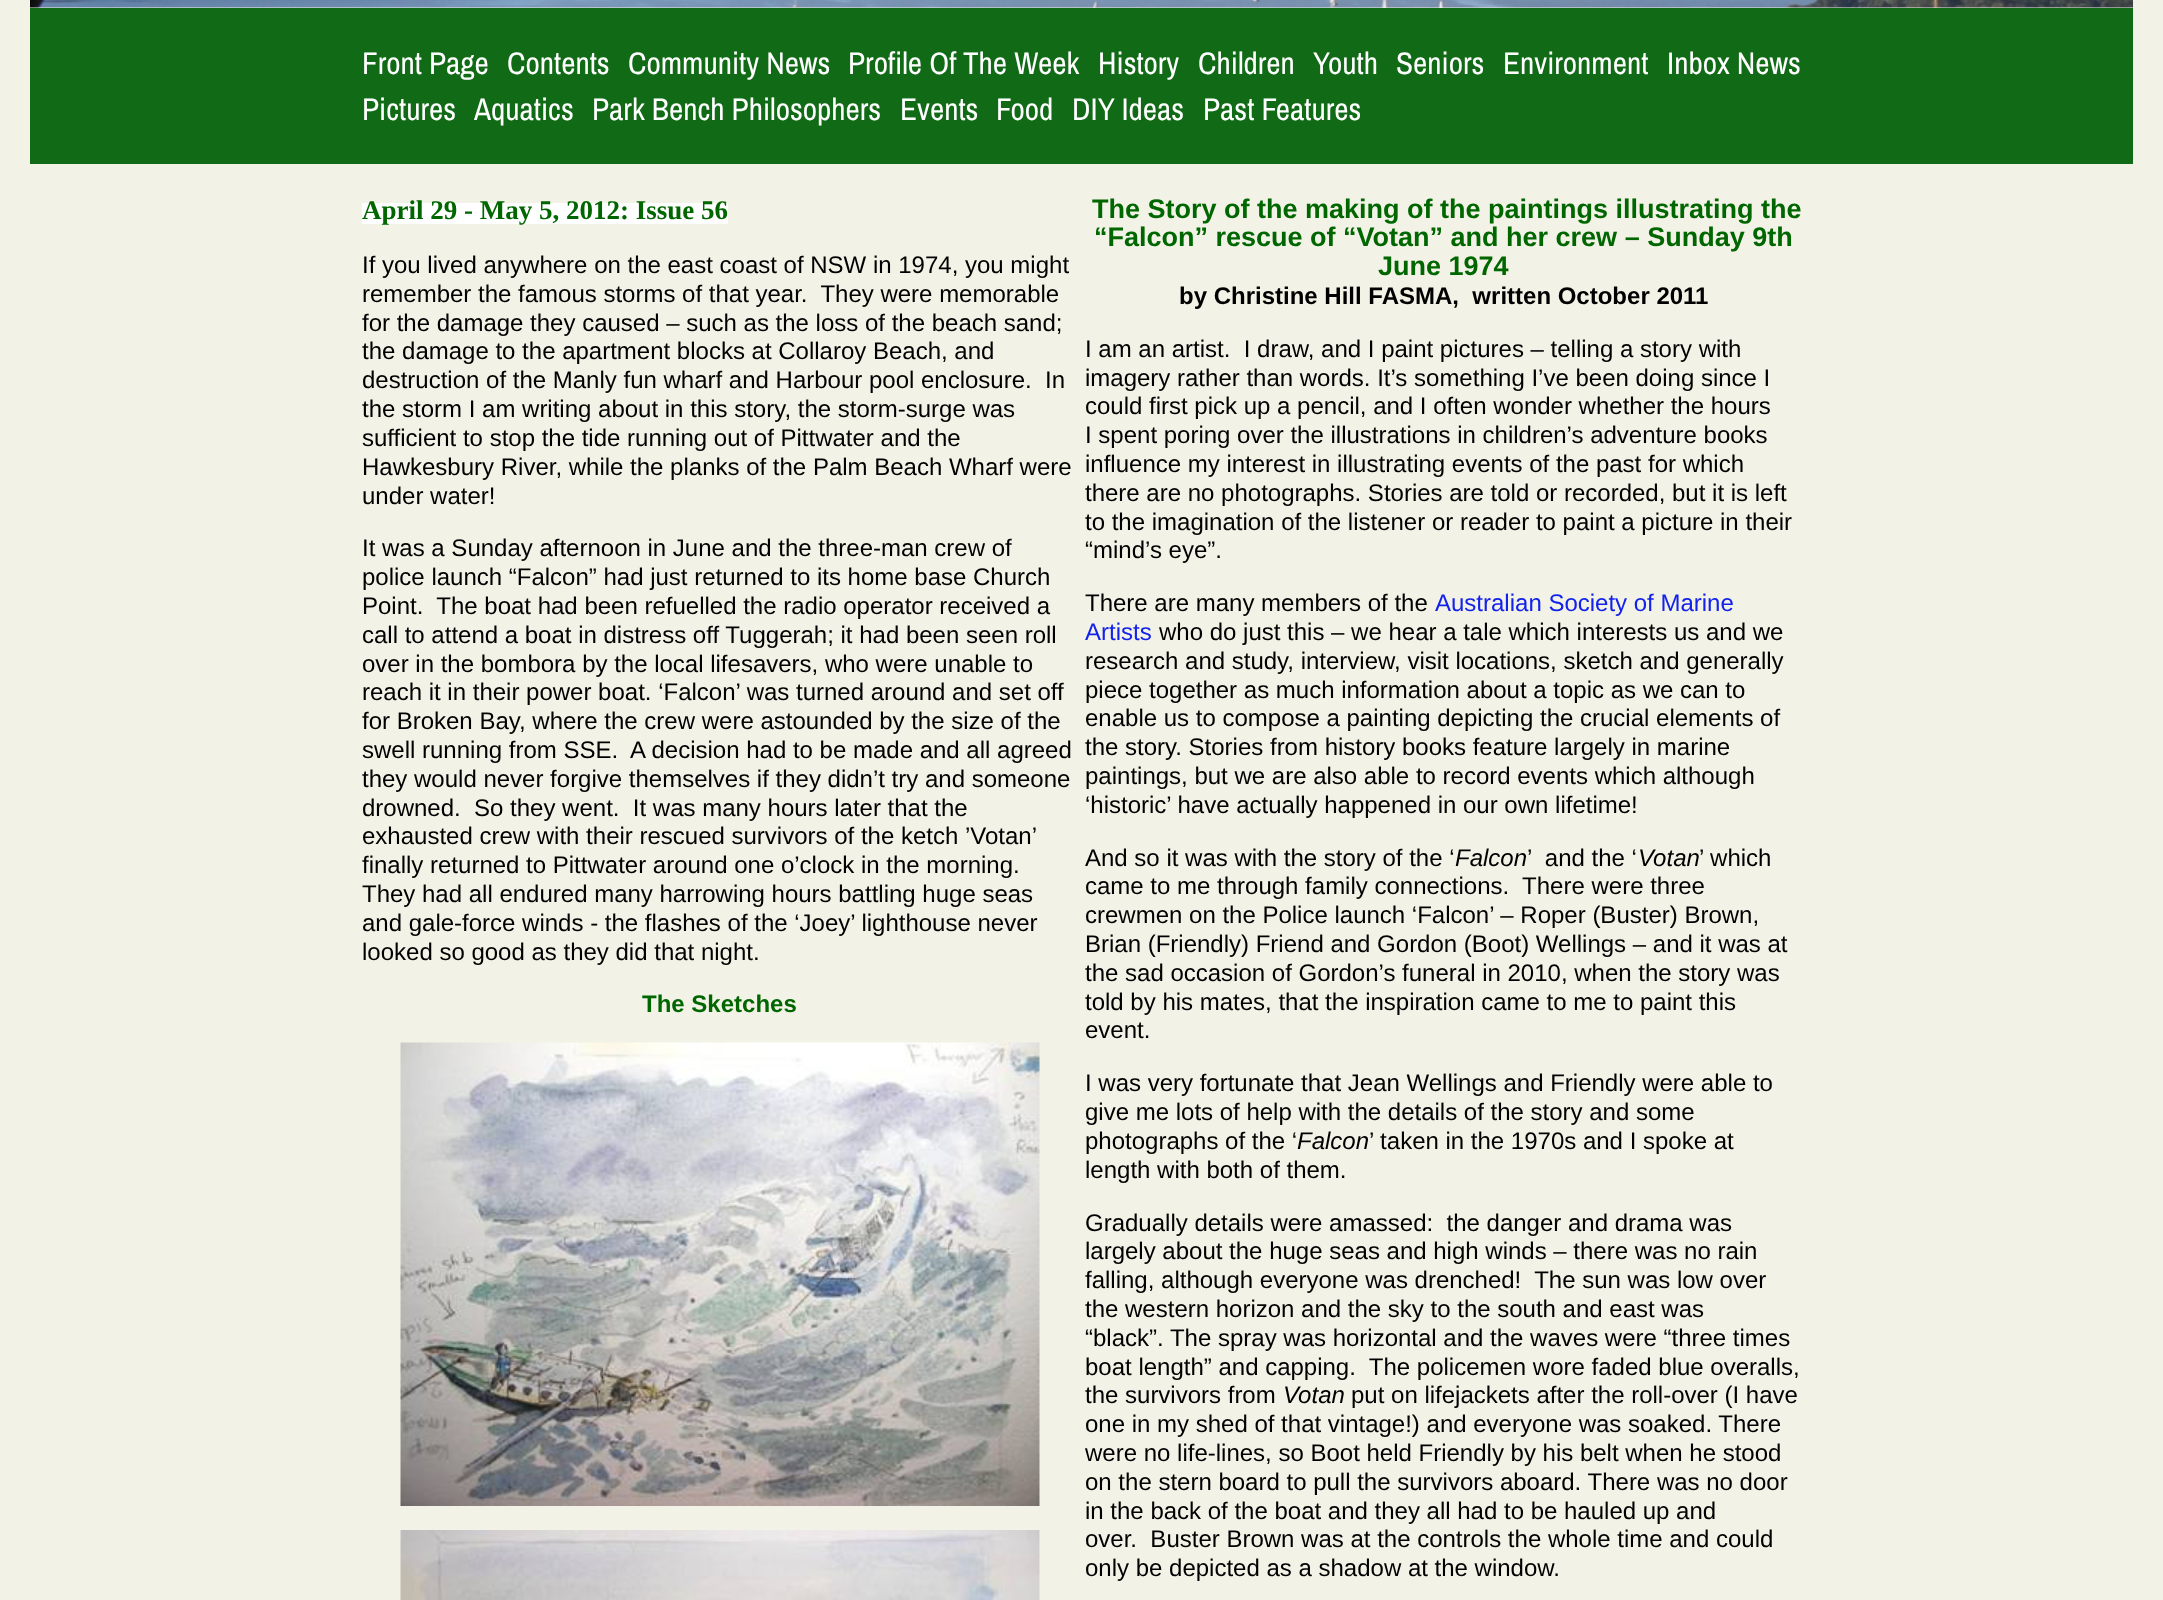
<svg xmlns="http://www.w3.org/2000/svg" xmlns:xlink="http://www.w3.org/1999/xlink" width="2163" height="1600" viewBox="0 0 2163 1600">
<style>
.cls-1{font:31.25px Archivo Narrow;fill:#ffffff}
.cls-2{font:bold 27px Liberation Serif;fill:#006600}
.cls-3{font:24px Liberation Sans;fill:#000000}
.cls-4{font:bold 24px Liberation Sans;fill:#006600}
.cls-5{font:bold 27px Liberation Sans;fill:#006600}
.cls-6{font:bold 24px Liberation Sans;fill:#000000}
.cls-7{font:24px Liberation Sans;fill:#1221eb}
.cls-8{font:italic 24px Liberation Sans;fill:#000000}
</style>
<rect width="100%" height="100%" fill="#f2f2e6"/>
<image xlink:href="image0.png" x="30" y="0" width="2103" height="8"/>
<rect fill="#116b16" x="30" y="8" width="2103" height="156"/>
<rect fill="#ffffff" x="362" y="203" width="366" height="21"/>
<image xlink:href="image1.png" x="400" y="1042" width="640" height="464"/>
<image xlink:href="image2.png" x="400" y="1530" width="640" height="70"/>
<text class="cls-1" x="362" y="74">Front Page</text>
<text class="cls-1" x="507" y="74">Contents</text>
<text class="cls-1" x="628" y="74">Community News</text>
<text class="cls-1" x="848" y="74">Profile Of The Week</text>
<text class="cls-1" x="1098" y="74">History</text>
<text class="cls-1" x="1198" y="74">Children</text>
<text class="cls-1" x="1313" y="74">Youth</text>
<text class="cls-1" x="1396" y="74">Seniors</text>
<text class="cls-1" x="1503" y="74">Environment</text>
<text class="cls-1" x="1667" y="74">Inbox News</text>
<text class="cls-1" x="362" y="120">Pictures</text>
<text class="cls-1" x="474" y="120">Aquatics</text>
<text class="cls-1" x="592" y="120">Park Bench Philosophers</text>
<text class="cls-1" x="900" y="120">Events</text>
<text class="cls-1" x="996" y="120">Food</text>
<text class="cls-1" x="1072" y="120">DIY Ideas</text>
<text class="cls-1" x="1203" y="120">Past Features</text>
<text class="cls-2" x="362" y="219">April 29 - May 5, 2012: Issue 56</text>
<text class="cls-3" xml:space="preserve"><tspan x="362" y="273">If you lived anywhere on the east coast of NSW in 1974, you might</tspan><tspan x="362" y="302">remember the famous storms of that year.  They were memorable</tspan><tspan x="362" y="331">for the damage they caused – such as the loss of the beach sand;</tspan><tspan x="362" y="359">the damage to the apartment blocks at Collaroy Beach, and</tspan><tspan x="362" y="388">destruction of the Manly fun wharf and Harbour pool enclosure.  In</tspan><tspan x="362" y="417">the storm I am writing about in this story, the storm-surge was</tspan><tspan x="362" y="446">sufficient to stop the tide running out of Pittwater and the</tspan><tspan x="362" y="475">Hawkesbury River, while the planks of the Palm Beach Wharf were</tspan><tspan x="362" y="504">under water!</tspan></text>
<text class="cls-3" xml:space="preserve"><tspan x="362" y="556">It was a Sunday afternoon in June and the three-man crew of</tspan><tspan x="362" y="585">police launch “Falcon” had just returned to its home base Church</tspan><tspan x="362" y="614">Point.  The boat had been refuelled the radio operator received a</tspan><tspan x="362" y="643">call to attend a boat in distress off Tuggerah; it had been seen roll</tspan><tspan x="362" y="672">over in the bombora by the local lifesavers, who were unable to</tspan><tspan x="362" y="700">reach it in their power boat. ‘Falcon’ was turned around and set off</tspan><tspan x="362" y="729">for Broken Bay, where the crew were astounded by the size of the</tspan><tspan x="362" y="758">swell running from SSE.  A decision had to be made and all agreed</tspan><tspan x="362" y="787">they would never forgive themselves if they didn’t try and someone</tspan><tspan x="362" y="816">drowned.  So they went.  It was many hours later that the</tspan><tspan x="362" y="844">exhausted crew with their rescued survivors of the ketch ’Votan’</tspan><tspan x="362" y="873">finally returned to Pittwater around one o’clock in the morning.</tspan><tspan x="362" y="902">They had all endured many harrowing hours battling huge seas</tspan><tspan x="362" y="931">and gale-force winds - the flashes of the ‘Joey’ lighthouse never</tspan><tspan x="362" y="960">looked so good as they did that night.</tspan></text>
<text class="cls-4" x="642" y="1012">The Sketches</text>
<text class="cls-5" x="1092" y="218">The Story of the making of the paintings illustrating the</text>
<text class="cls-5" x="1094" y="246">“Falcon” rescue of “Votan” and her crew – Sunday 9th</text>
<text class="cls-5" x="1378" y="275">June 1974</text>
<text class="cls-6" xml:space="preserve" x="1179" y="304">by Christine Hill FASMA,  written October 2011</text>
<text class="cls-3" xml:space="preserve"><tspan x="1085" y="357">I am an artist.  I draw, and I paint pictures – telling a story with</tspan><tspan x="1085" y="386">imagery rather than words. It’s something I’ve been doing since I</tspan><tspan x="1085" y="414">could first pick up a pencil, and I often wonder whether the hours</tspan><tspan x="1085" y="443">I spent poring over the illustrations in children’s adventure books</tspan><tspan x="1085" y="472">influence my interest in illustrating events of the past for which</tspan><tspan x="1085" y="501">there are no photographs. Stories are told or recorded, but it is left</tspan><tspan x="1085" y="530">to the imagination of the listener or reader to paint a picture in their</tspan><tspan x="1085" y="558">“mind’s eye”.</tspan></text>
<text class="cls-3" x="1085" y="611">There are many members of the</text>
<text class="cls-7" x="1435" y="611">Australian Society of Marine</text>
<text class="cls-7" x="1085" y="640">Artists</text>
<text class="cls-3" x="1159" y="640">who do just this – we hear a tale which interests us and we</text>
<text class="cls-3"><tspan x="1085" y="669">research and study, interview, visit locations, sketch and generally</tspan><tspan x="1085" y="698">piece together as much information about a topic as we can to</tspan><tspan x="1085" y="726">enable us to compose a painting depicting the crucial elements of</tspan><tspan x="1085" y="755">the story. Stories from history books feature largely in marine</tspan><tspan x="1085" y="784">paintings, but we are also able to record events which although</tspan><tspan x="1085" y="813">‘historic’ have actually happened in our own lifetime!</tspan></text>
<text class="cls-3" x="1085" y="866">And so it was with the story of the ‘</text>
<text class="cls-8" x="1455" y="866">Falcon</text>
<text class="cls-3" xml:space="preserve" x="1527" y="866">’  and the ‘</text>
<text class="cls-8" x="1638" y="866">Votan</text>
<text class="cls-3" x="1699" y="866">’ which</text>
<text class="cls-3" xml:space="preserve"><tspan x="1085" y="894">came to me through family connections.  There were three</tspan><tspan x="1085" y="923">crewmen on the Police launch ‘Falcon’ – Roper (Buster) Brown,</tspan><tspan x="1085" y="952">Brian (Friendly) Friend and Gordon (Boot) Wellings – and it was at</tspan><tspan x="1085" y="981">the sad occasion of Gordon’s funeral in 2010, when the story was</tspan><tspan x="1085" y="1010">told by his mates, that the inspiration came to me to paint this</tspan><tspan x="1085" y="1038">event.</tspan></text>
<text class="cls-3"><tspan x="1085" y="1091">I was very fortunate that Jean Wellings and Friendly were able to</tspan><tspan x="1085" y="1120">give me lots of help with the details of the story and some</tspan><tspan x="1085" y="1149">photographs of the ‘</tspan></text>
<text class="cls-8" x="1297" y="1149">Falcon</text>
<text class="cls-3" x="1369" y="1149">’ taken in the 1970s and I spoke at</text>
<text class="cls-3" x="1085" y="1178">length with both of them.</text>
<text class="cls-3" xml:space="preserve"><tspan x="1085" y="1231">Gradually details were amassed:  the danger and drama was</tspan><tspan x="1085" y="1259">largely about the huge seas and high winds – there was no rain</tspan><tspan x="1085" y="1288">falling, although everyone was drenched!  The sun was low over</tspan><tspan x="1085" y="1317">the western horizon and the sky to the south and east was</tspan><tspan x="1085" y="1346">“black”. The spray was horizontal and the waves were “three times</tspan><tspan x="1085" y="1375">boat length” and capping.  The policemen wore faded blue overalls,</tspan><tspan x="1085" y="1403">the survivors from</tspan></text>
<text class="cls-8" x="1283" y="1403">Votan</text>
<text class="cls-3" x="1351" y="1403">put on lifejackets after the roll-over (I have</text>
<text class="cls-3" xml:space="preserve"><tspan x="1085" y="1432">one in my shed of that vintage!) and everyone was soaked. There</tspan><tspan x="1085" y="1461">were no life-lines, so Boot held Friendly by his belt when he stood</tspan><tspan x="1085" y="1490">on the stern board to pull the survivors aboard. There was no door</tspan><tspan x="1085" y="1519">in the back of the boat and they all had to be hauled up and</tspan><tspan x="1085" y="1547">over.  Buster Brown was at the controls the whole time and could</tspan><tspan x="1085" y="1576">only be depicted as a shadow at the window.</tspan></text>
</svg>
